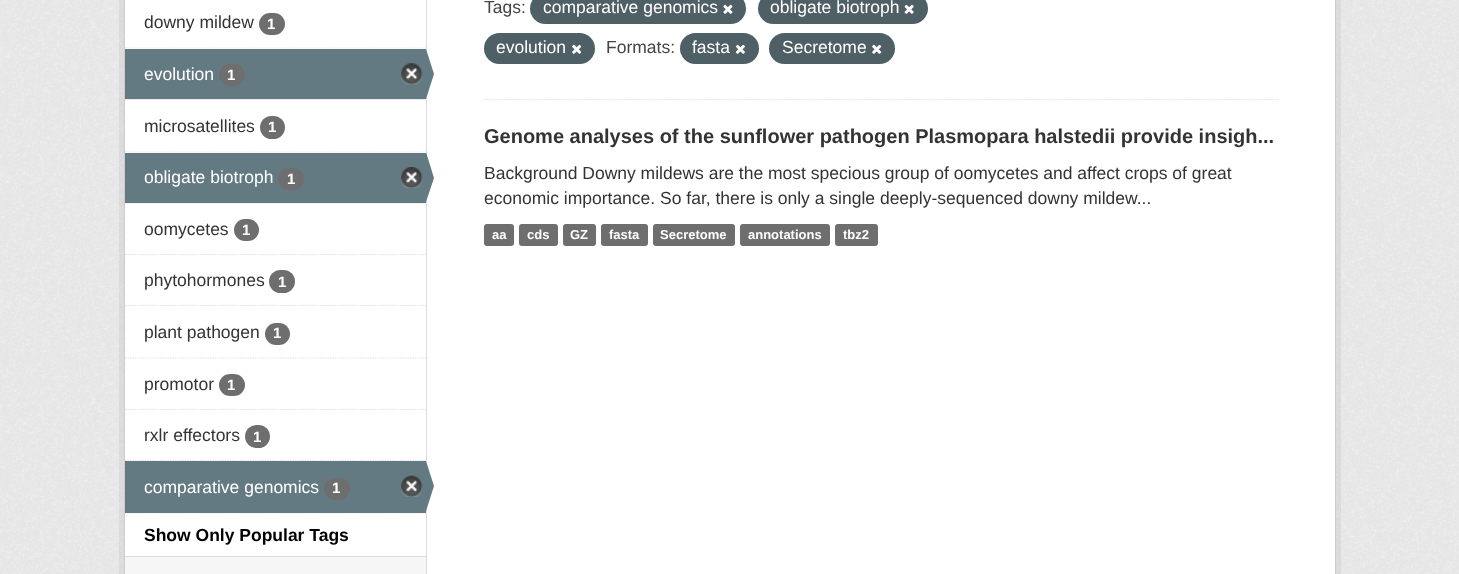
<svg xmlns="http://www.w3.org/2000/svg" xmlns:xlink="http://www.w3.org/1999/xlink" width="1459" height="574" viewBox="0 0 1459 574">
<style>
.cls-1{font:17.5px Liberation Sans;fill:#333333}
.cls-2{font:bold 15px Liberation Sans;fill:#ffffff}
.cls-3{font:17.5px Liberation Sans;fill:#ffffff}
.cls-4{font:bold 17.5px Liberation Sans;fill:#000000}
.cls-5{font:17.5px Liberation Sans;fill:#444444}
.cls-6{font:bold 20px Liberation Sans;fill:#333333}
.cls-7{font:bold 13px Liberation Sans;fill:#ffffff}
</style>
<rect width="100%" height="100%" fill="#eeeeee"/>
<image xlink:href="image0.png" x="0" y="0" width="1459" height="574"/>
<rect fill="none" stroke="#000000" stroke-opacity="0.05" stroke-width="5" x="121.5" y="-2.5" width="1217" height="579"/>
<rect fill="#ffffff" stroke="#cccccc" x="124.5" y="-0.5" width="1211" height="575"/>
<path fill="none" stroke="#dddddd" stroke-width="1.2" stroke-dasharray="1.25 1.25" d="M125 48H426"/>
<rect fill="#6e6e6e" x="259" y="13" width="26" height="22" rx="11"/>
<rect fill="#f6f6f6" x="126" y="99" width="299" height="1"/>
<path fill="none" stroke="#dddddd" stroke-width="1.2" stroke-dasharray="1.25 1.25" d="M125 99.5H426"/>
<rect fill="#647a82" x="125" y="49" width="301" height="50"/>
<rect fill="#6e6e6e" x="219" y="64" width="26" height="22" rx="11"/>
<image xlink:href="image1.png" x="401" y="63" width="22" height="22"/>
<rect fill="#dddddd" x="426" y="0" width="1" height="574"/>
<path fill="#647a82" d="M426 99V49L434 74Z"/>
<path fill="none" stroke="#dddddd" stroke-width="1.2" stroke-dasharray="1.25 1.25" d="M125 152H426"/>
<rect fill="#6e6e6e" x="260" y="116" width="25" height="23" rx="11.5"/>
<rect fill="#f6f6f6" x="125" y="203" width="301" height="1"/>
<path fill="none" stroke="#dddddd" stroke-width="1.2" stroke-dasharray="1.25 1.25" d="M125 203H426"/>
<rect fill="#647a82" x="125" y="153" width="301" height="50"/>
<rect fill="#6e6e6e" x="278" y="168" width="26" height="22" rx="11"/>
<image xlink:href="image2.png" x="401" y="167" width="22" height="22"/>
<path fill="#647a82" d="M426 202V152L434 178Z"/>
<path fill="none" stroke="#dddddd" stroke-width="1.2" stroke-dasharray="1.25 1.25" d="M125 254.5H426"/>
<rect fill="#6e6e6e" x="234" y="219" width="25" height="22" rx="11"/>
<path fill="none" stroke="#dddddd" stroke-width="1.2" stroke-dasharray="1.25 1.25" d="M125 305.5H426"/>
<rect fill="#6e6e6e" x="269" y="270" width="26" height="23" rx="11.5"/>
<path fill="none" stroke="#dddddd" stroke-width="1.2" stroke-dasharray="1.25 1.25" d="M125 358H426"/>
<rect fill="#6e6e6e" x="265" y="323" width="25" height="22" rx="11"/>
<path fill="none" stroke="#dddddd" stroke-width="1.2" stroke-dasharray="1.25 1.25" d="M125 409.5H426"/>
<rect fill="#6e6e6e" x="219" y="374" width="26" height="22" rx="11"/>
<path fill="none" stroke="#dddddd" stroke-width="1.2" stroke-dasharray="1.25 1.25" d="M125 460.5H426"/>
<rect fill="#6e6e6e" x="245" y="425" width="25" height="23" rx="11.5"/>
<path fill="none" stroke="#dddddd" stroke-width="1.2" stroke-dasharray="1.25 1.25" d="M125 513H426"/>
<rect fill="#647a82" x="125" y="461" width="301" height="52"/>
<rect fill="#6e6e6e" x="324" y="478" width="26" height="22" rx="11"/>
<image xlink:href="image3.png" x="401" y="475" width="22" height="22"/>
<path fill="#647a82" d="M426 511V461L434 486Z"/>
<rect fill="#f6f6f6" x="125" y="557" width="301" height="17"/>
<rect fill="#dddddd" x="125" y="556" width="301" height="1"/>
<path fill="none" stroke="#dddddd" stroke-width="1.2" stroke-dasharray="1.25 1.25" d="M484 99.5H1279"/>
<rect fill="#4e5f65" x="530" y="-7" width="216" height="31" rx="15.5"/>
<image xlink:href="image4.png" x="723" y="4" width="10" height="10"/>
<rect fill="#4e5f65" x="758" y="-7" width="170" height="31" rx="15.5"/>
<image xlink:href="image5.png" x="904" y="4" width="10" height="10"/>
<rect fill="#4e5f65" x="484" y="33" width="111" height="31" rx="15.5"/>
<image xlink:href="image6.png" x="572" y="44" width="10" height="10"/>
<rect fill="#4e5f65" x="680" y="33" width="79" height="31" rx="15.5"/>
<image xlink:href="image7.png" x="735" y="44" width="10" height="10"/>
<rect fill="#4e5f65" x="769" y="33" width="126" height="31" rx="15.5"/>
<image xlink:href="image6.png" x="872" y="44" width="10" height="10"/>
<rect fill="#6e6e6e" x="484" y="224" width="30" height="22" rx="3"/>
<rect fill="#6e6e6e" x="519" y="224" width="39" height="22" rx="3"/>
<rect fill="#6e6e6e" x="563" y="224" width="33" height="22" rx="3"/>
<rect fill="#6e6e6e" x="601" y="224" width="47" height="22" rx="3"/>
<rect fill="#6e6e6e" x="653" y="224" width="82" height="22" rx="3"/>
<rect fill="#6e6e6e" x="740" y="224" width="90" height="22" rx="3"/>
<rect fill="#6e6e6e" x="835" y="224" width="43" height="22" rx="3"/>
<text class="cls-1" x="144" y="28">downy mildew</text>
<text class="cls-2" x="267" y="29">1</text>
<text class="cls-3" x="144" y="80">evolution</text>
<text class="cls-2" x="227" y="80">1</text>
<text class="cls-1" x="144" y="132">microsatellites</text>
<text class="cls-2" x="268" y="132">1</text>
<text class="cls-3" x="144" y="183">obligate biotroph</text>
<text class="cls-2" x="287" y="184">1</text>
<text class="cls-1" x="144" y="235">oomycetes</text>
<text class="cls-2" x="242" y="235">1</text>
<text class="cls-1" x="144" y="286">phytohormones</text>
<text class="cls-2" x="278" y="287">1</text>
<text class="cls-1" x="144" y="338">plant pathogen</text>
<text class="cls-2" x="273" y="338">1</text>
<text class="cls-1" x="144" y="390">promotor</text>
<text class="cls-2" x="227" y="390">1</text>
<text class="cls-1" x="144" y="441">rxlr effectors</text>
<text class="cls-2" x="253" y="442">1</text>
<text class="cls-3" x="144" y="493">comparative genomics</text>
<text class="cls-2" x="332" y="493">1</text>
<text class="cls-4" x="144" y="541">Show Only Popular Tags</text>
<text class="cls-5" x="484" y="13">Tags:</text>
<text class="cls-3" x="543" y="13">comparative genomics</text>
<text class="cls-3" x="770" y="13">obligate biotroph</text>
<text class="cls-3" x="496" y="53">evolution</text>
<text class="cls-5" x="606" y="53">Formats:</text>
<text class="cls-3" x="692" y="53">fasta</text>
<text class="cls-3" x="782" y="53">Secretome</text>
<text class="cls-6" x="484" y="143">Genome analyses of the sunflower pathogen Plasmopara halstedii provide insigh...</text>
<text class="cls-1"><tspan x="484" y="179">Background Downy mildews are the most specious group of oomycetes and affect crops of great</tspan><tspan x="484" y="204">economic importance. So far, there is only a single deeply-sequenced downy mildew...</tspan></text>
<text class="cls-7" x="492" y="239">aa</text>
<text class="cls-7" x="527" y="239">cds</text>
<text class="cls-7" x="570" y="239">GZ</text>
<text class="cls-7" x="609" y="239">fasta</text>
<text class="cls-7" x="660" y="239">Secretome</text>
<text class="cls-7" x="748" y="239">annotations</text>
<text class="cls-7" x="843" y="239">tbz2</text>
</svg>
